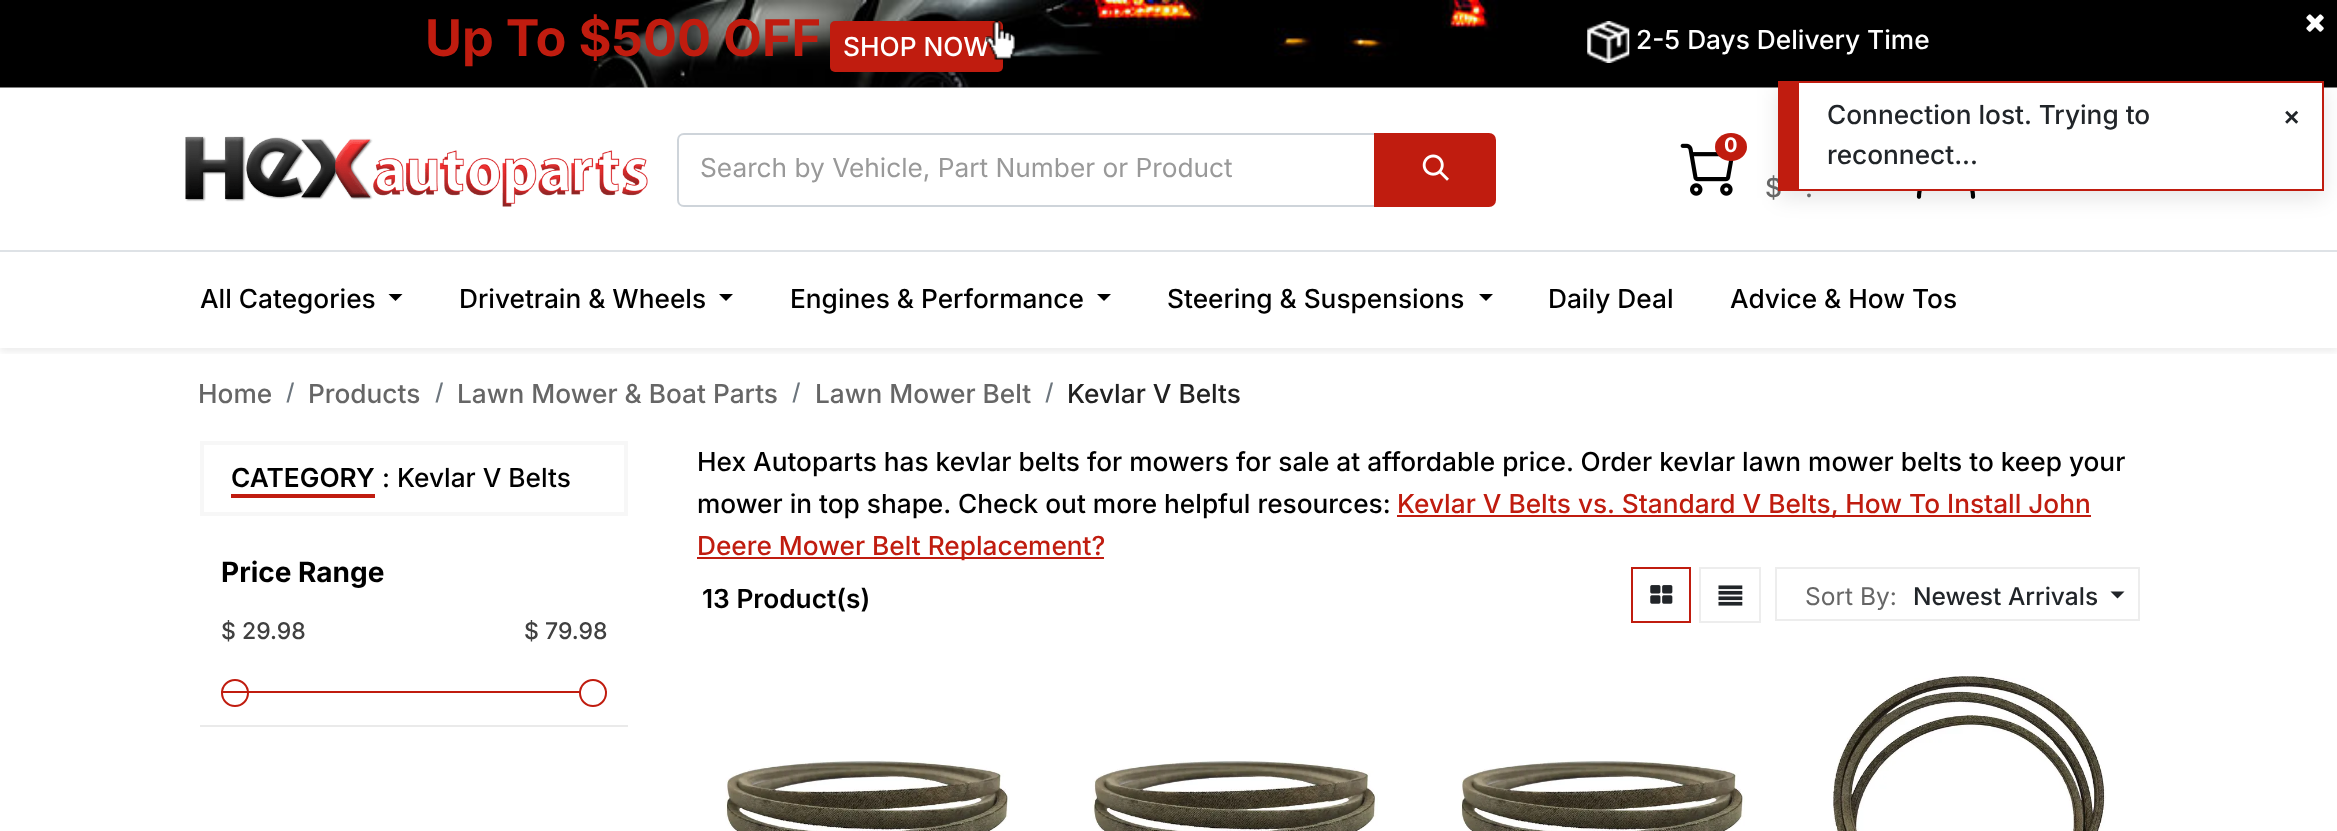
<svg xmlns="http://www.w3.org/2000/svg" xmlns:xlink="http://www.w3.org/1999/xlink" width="2337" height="831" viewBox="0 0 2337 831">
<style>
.cls-1{font:bold 50.5px Inter;fill:#c01c0f}
.cls-2{font:500 26.25px Inter;fill:#ffffff}
.cls-3{font:26.25px Inter;fill:#999999}
.cls-4{font:bold 20px Inter;fill:#ffffff}
.cls-5{font:500 26.25px Inter;fill:#666666}
.cls-6{font:500 26.25px Inter;fill:#000000}
.cls-7{font:500 23px Inter;fill:#6c757d}
.cls-8{font:500 26.25px Inter;fill:#222222}
.cls-9{font:600 26.25px Inter;fill:#000000}
.cls-10{font:bold 28px Inter;fill:#000000}
.cls-11{font:500 23px Inter;fill:#404040}
.cls-12{font:500 26.25px Inter;fill:#c01c0f}
.cls-13{font:24.5px Inter;fill:#666666}
.cls-14{font:500 24.5px Inter;fill:#212529}
.cls-15{font:500 26.25px Inter;fill:#212529}
.cls-16{font:bold 26.25px Liberation Sans;fill:#212529}
</style>
<defs>
<clipPath id="clip1"><rect x="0" y="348" width="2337" height="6"/></clipPath>
</defs>
<rect width="100%" height="100%" fill="#ffffff"/>
<g clip-path="url(#clip1)">
<rect fill="#000000" fill-opacity="0.07" filter="blur(3.5px)" x="0" y="4" width="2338" height="348"/>
</g>
<image xlink:href="image0.png" x="0" y="0" width="2337" height="88"/>
<rect fill="#c01c0f" x="830" y="21" width="173" height="51" rx="5"/>
<image xlink:href="image2.png" x="1587" y="21" width="43" height="42"/>
<image xlink:href="image3.png" x="2306" y="14" width="18" height="18"/>
<image xlink:href="image4.png" x="185" y="136" width="463" height="71"/>
<path fill="none" stroke="#ced4da" stroke-width="2" d="M684 134H1375V206H684C680.5 206 678 203.5 678 200V140C678 136.5 680.5 134 684 134Z"/>
<path fill="#c01c0f" stroke="#c01c0f" stroke-width="2" d="M1375 134H1489C1492.5 134 1495 136.5 1495 140V200C1495 203.5 1492.5 206 1489 206H1375Z"/>
<image xlink:href="image5.png" x="1422" y="154" width="27" height="27"/>
<image xlink:href="image6.png" x="1680" y="143" width="54" height="53"/>
<ellipse fill="#c01c0f" cx="1731" cy="147" rx="16" ry="14"/>
<image xlink:href="image7.png" x="1916" y="191" width="60" height="8"/>
<rect fill="#dee2e6" x="0" y="250" width="2337" height="2"/>
<path fill="#000000" d="M388.5 294H402.5L395.5 301Z"/>
<path fill="#000000" d="M719 294H733L726 301Z"/>
<path fill="#000000" d="M1097 294H1111L1104 301Z"/>
<path fill="#000000" d="M1479 294H1493L1486 301Z"/>
<rect fill="none" stroke="#f7f7f7" stroke-width="4" x="202" y="443" width="424" height="71"/>
<rect fill="#c01c10" x="231" y="494" width="144" height="4"/>
<rect fill="#eaeaea" x="200" y="725" width="428" height="2"/>
<circle fill="none" stroke="#c01c0f" stroke-width="2" cx="235" cy="693" r="13"/>
<rect fill="#c01c0f" x="221" y="691" width="386" height="2" rx="1"/>
<circle fill="#ffffff" stroke="#c01c0f" stroke-width="2" cx="593" cy="693" r="13"/>
<rect fill="#c01c0f" x="1397" y="515" width="694" height="2"/>
<rect fill="#c01c0f" x="697" y="557" width="407" height="2"/>
<rect fill="none" stroke="#c01c0f" stroke-width="2" x="1632" y="568" width="58" height="54"/>
<image xlink:href="image8.png" x="1650" y="585" width="23" height="19"/>
<rect fill="none" stroke="#ededed" stroke-width="2" x="1700" y="568" width="60" height="54"/>
<image xlink:href="image9.png" x="1718" y="585" width="25" height="21"/>
<rect fill="none" stroke="#ededed" stroke-width="2" x="1776" y="568" width="363" height="52"/>
<path fill="#212529" d="M2110.5 591.5H2124.5L2117.5 598.5Z"/>
<image xlink:href="image10.png" x="725" y="760" width="285" height="71"/>
<image xlink:href="image11.png" x="1092" y="760" width="286" height="71"/>
<image xlink:href="image10.png" x="1460" y="760" width="285" height="71"/>
<image xlink:href="image12.png" x="1833" y="676" width="273" height="155"/>
<rect fill="#000000" fill-opacity="0.1" filter="blur(10.5px)" x="1778" y="88" width="546" height="110"/>
<rect fill="#ffffff" x="1799" y="83" width="523" height="106"/>
<rect fill="#c01c0f" x="1799" y="81" width="525" height="2"/>
<rect fill="#c01c0f" x="2322" y="81" width="2" height="110"/>
<rect fill="#c01c0f" x="1799" y="189" width="525" height="2"/>
<text class="cls-1" x="425" y="56">Up To $500 OFF</text>
<text class="cls-2" x="843" y="56">SHOP NOW</text>
<image xlink:href="image1.png" x="985" y="21" width="30" height="39"/>
<text class="cls-2" x="1636" y="49">2-5 Days Delivery Time</text>
<text class="cls-3" x="700" y="177">Search by Vehicle, Part Number or Product</text>
<text class="cls-4" x="1724" y="152">0</text>
<text class="cls-5" x="1765" y="197">$</text>
<text class="cls-5" x="1805" y="197">.</text>
<text class="cls-6" x="200" y="308">All Categories</text>
<text class="cls-6" x="459" y="308">Drivetrain &amp; Wheels</text>
<text class="cls-6" x="790" y="308">Engines &amp; Performance</text>
<text class="cls-6" x="1167" y="308">Steering &amp; Suspensions</text>
<text class="cls-6" x="1548" y="308">Daily Deal</text>
<text class="cls-6" x="1730" y="308">Advice &amp; How Tos</text>
<text class="cls-5" x="198" y="403">Home</text>
<text class="cls-7" x="286" y="400">/</text>
<text class="cls-5" x="308" y="403">Products</text>
<text class="cls-7" x="435" y="400">/</text>
<text class="cls-5" x="457" y="403">Lawn Mower &amp; Boat Parts</text>
<text class="cls-7" x="792" y="400">/</text>
<text class="cls-5" x="815" y="403">Lawn Mower Belt</text>
<text class="cls-7" x="1045" y="400">/</text>
<text class="cls-8" x="1067" y="403">Kevlar V Belts</text>
<text class="cls-9" x="231" y="487">CATEGORY</text>
<text class="cls-6" x="382" y="487">: Kevlar V Belts</text>
<text class="cls-10" x="221" y="582">Price Range</text>
<text class="cls-11" x="221" y="639">$ 29.98</text>
<text class="cls-11" x="524" y="639">$ 79.98</text>
<text class="cls-6"><tspan x="697" y="471">Hex Autoparts has kevlar belts for mowers for sale at affordable price. Order kevlar lawn mower belts to keep your</tspan><tspan x="697" y="513">mower in top shape. Check out more helpful resources:</tspan></text>
<text class="cls-12" x="1397" y="513">Kevlar V Belts vs. Standard V Belts, How To Install John</text>
<text class="cls-12" x="697" y="555">Deere Mower Belt Replacement?</text>
<text class="cls-9" x="702" y="608">13 Product(s)</text>
<text class="cls-13" x="1805" y="605">Sort By:</text>
<text class="cls-14" x="1913" y="605">Newest Arrivals</text>
<rect fill="#c01c0f" x="1778" y="81" width="21" height="110"/>
<text class="cls-15"><tspan x="1827" y="124">Connection lost. Trying to</tspan><tspan x="1827" y="164">reconnect...</tspan></text>
<text class="cls-16" x="2284" y="126">×</text>
</svg>
